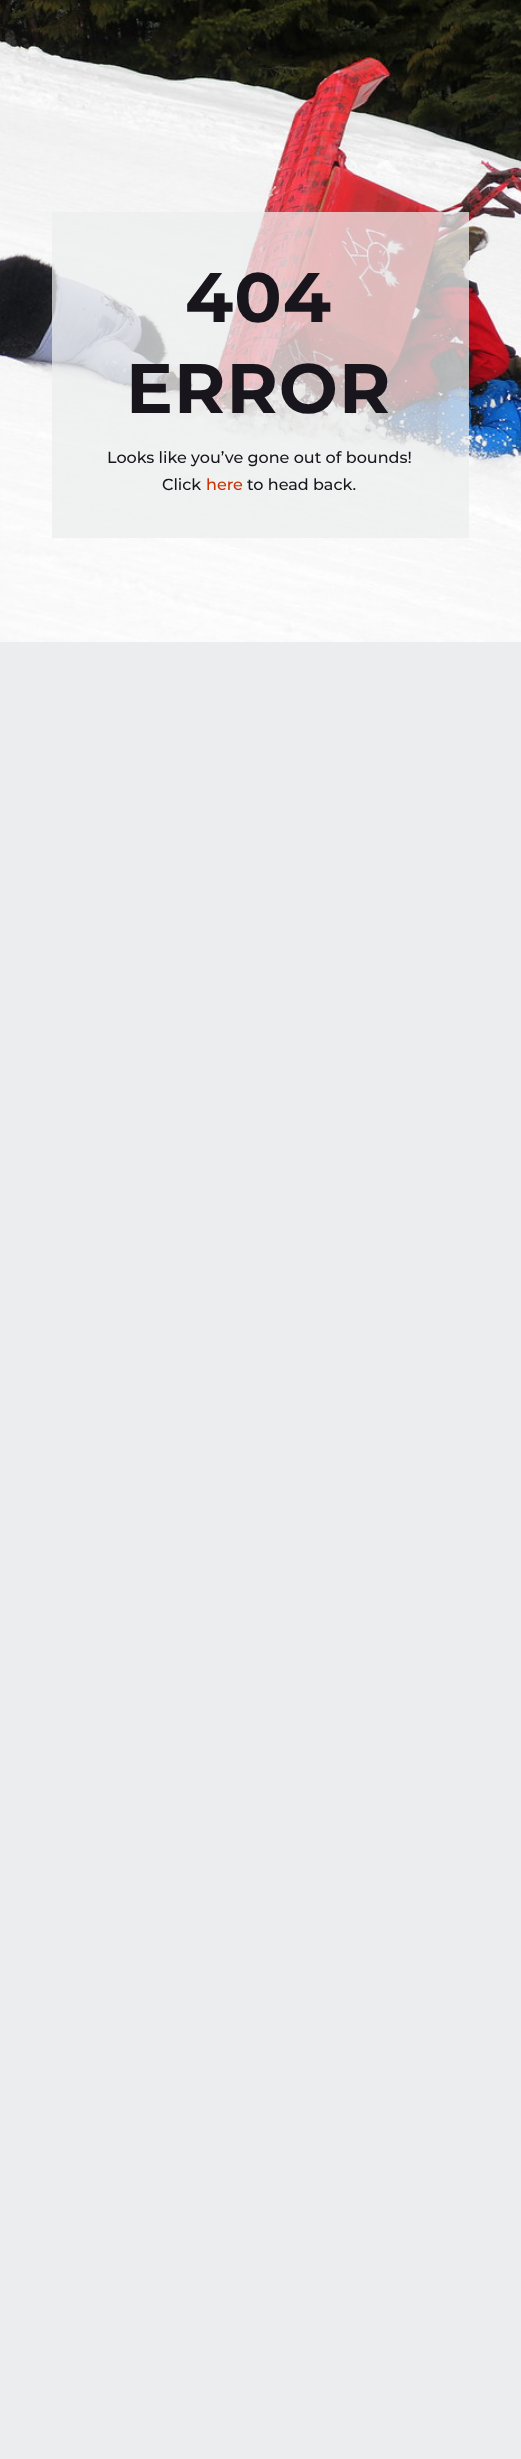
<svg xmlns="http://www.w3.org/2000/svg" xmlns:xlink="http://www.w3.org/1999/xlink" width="521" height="2459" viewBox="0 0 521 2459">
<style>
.cls-1{font:100 70px Montserrat;letter-spacing:1px;fill:#18161c}
.cls-2{font:100 16px 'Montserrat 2';fill:#18161c}
.cls-3{font:100 16px 'Montserrat 2';fill:#cc3201}
</style>
<rect width="100%" height="100%" fill="#ecedee"/>
<image xlink:href="image0.png" x="0" y="0" width="521" height="642"/>
<rect fill="#ecedee" fill-opacity="0.74" x="52" y="212" width="417" height="326"/>
<text class="cls-1" x="185" y="322">404</text>
<text class="cls-1" x="126" y="413">ERROR</text>
<text class="cls-2" x="107" y="463">Looks like you’ve gone out of bounds!</text>
<text class="cls-2" x="162" y="490">Click</text>
<text class="cls-3" x="206" y="490">here</text>
<text class="cls-2" x="247" y="490">to head back.</text>
</svg>
